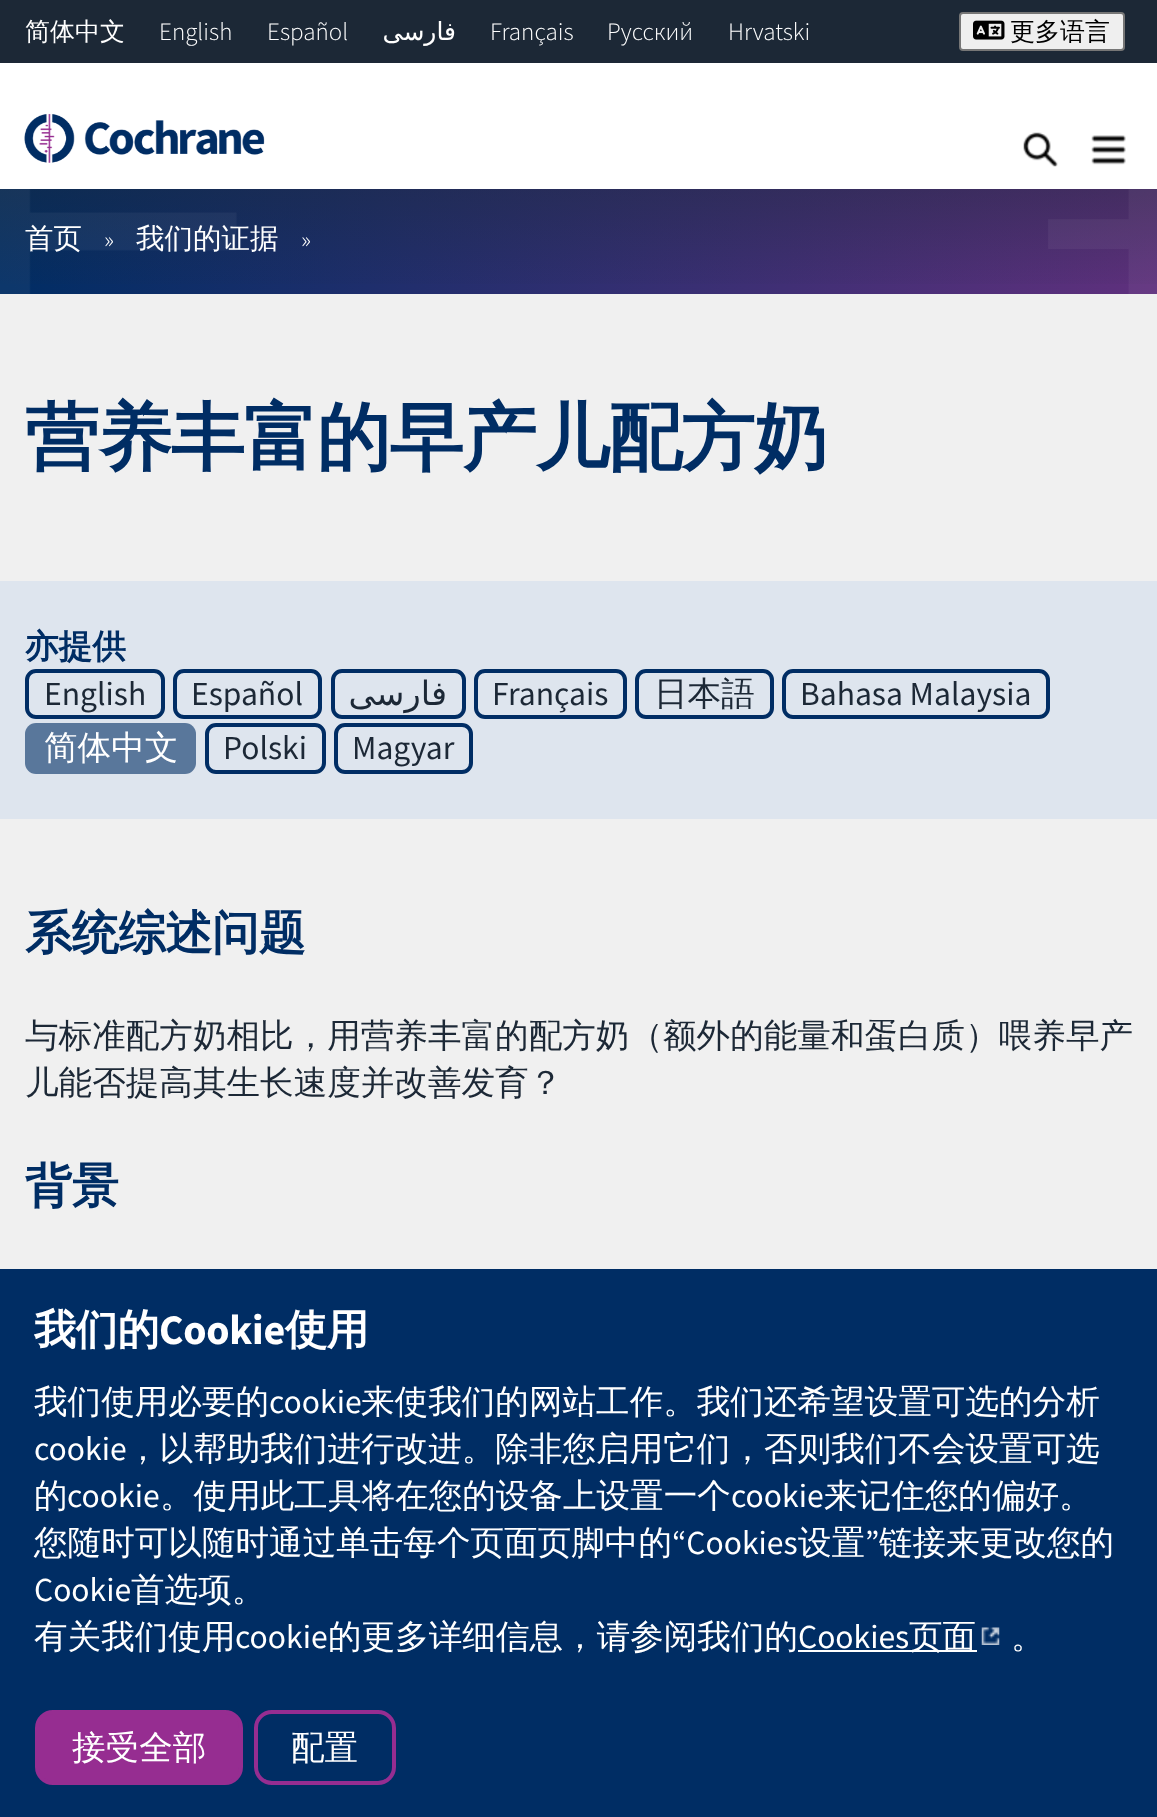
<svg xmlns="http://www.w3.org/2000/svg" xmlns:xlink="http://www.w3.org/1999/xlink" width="1157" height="1817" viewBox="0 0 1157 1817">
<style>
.cls-1{font:500 25px WenQuanYi Zen Hei;fill:#ffffff}
.cls-2{font:300 25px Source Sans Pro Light;fill:#ffffff}
.cls-3{font:25px DejaVu Sans;direction:rtl;fill:#ffffff}
.cls-4{font:500 25px WenQuanYi Zen Hei;fill:#000000}
.cls-5{font:500 28.5px WenQuanYi Zen Hei;fill:#ffffff}
.cls-6{font:bold 74px WenQuanYi Zen Hei;letter-spacing:-1.1px;fill:#002d64}
.cls-7{font:bold 33.6px WenQuanYi Zen Hei;fill:#002d64}
.cls-8{font:33.6px Source Sans Pro;fill:#1c2836}
.cls-9{font:33.6px DejaVu Sans;direction:rtl;fill:#1c2836}
.cls-10{font:500 33.6px WenQuanYi Zen Hei;fill:#1c2836}
.cls-11{font:500 33.6px WenQuanYi Zen Hei;fill:#ffffff}
.cls-12{font:bold 47px WenQuanYi Zen Hei;letter-spacing:-0.25px;fill:#002d64}
.cls-13{font:bold 42px WenQuanYi Zen Hei;letter-spacing:-0.25px;fill:#ffffff}
.cls-14{font:bold 42px Source Sans Pro;letter-spacing:-0.25px;fill:#ffffff}
.cls-15{font:33.6px Source Sans Pro;fill:#ffffff}
</style>
<defs>
<linearGradient id="g1" gradientUnits="userSpaceOnUse" x1="0" y1="242" x2="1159" y2="241"><stop offset="0" stop-color="#002d64"/><stop offset="1" stop-color="#5f307d"/></linearGradient>
<linearGradient id="g2" gradientUnits="userSpaceOnUse" x1="579" y1="21" x2="579" y2="294"><stop offset="0" stop-color="#1c2836"/><stop offset="1" stop-color="#1c2836" stop-opacity="0"/></linearGradient>
</defs>
<rect width="100%" height="100%" fill="#f0f0f0"/>
<rect fill="#1c2836" x="0" y="0" width="1157" height="63"/>
<rect fill="#ffffff" x="0" y="63" width="1157" height="126"/>
<rect fill="#efefef" stroke="#767676" stroke-width="2" x="960" y="13" width="164" height="37" rx="3"/>
<image xlink:href="image0.png" x="973" y="20" width="32" height="20"/>
<image xlink:href="image1.png" x="24" y="113" width="241" height="50"/>
<image xlink:href="image2.png" x="1023" y="132" width="35" height="35"/>
<image xlink:href="image3.png" x="1091" y="135" width="35" height="30"/>
<rect fill="url(#g1)" x="0" y="189" width="1157" height="105"/>
<rect fill="url(#g2)" x="0" y="189" width="1157" height="95"/>
<image xlink:href="image4.png" x="0" y="189" width="237" height="105"/>
<image xlink:href="image5.png" x="1048" y="189" width="109" height="105"/>
<rect fill="#dee5ee" x="0" y="581" width="1157" height="238"/>
<rect fill="none" stroke="#002d64" stroke-width="4" x="27" y="671" width="136" height="46" rx="9"/>
<rect fill="none" stroke="#002d64" stroke-width="4" x="175" y="671" width="145" height="46" rx="9"/>
<rect fill="none" stroke="#002d64" stroke-width="4" x="333" y="671" width="131" height="46" rx="9"/>
<rect fill="none" stroke="#002d64" stroke-width="4" x="476" y="671" width="149" height="46" rx="9"/>
<rect fill="none" stroke="#002d64" stroke-width="4" x="637" y="671" width="135" height="46" rx="9"/>
<rect fill="none" stroke="#002d64" stroke-width="4" x="784" y="671" width="264" height="46" rx="9"/>
<rect fill="#59779b" x="25" y="723" width="171" height="51" rx="11"/>
<rect fill="none" stroke="#002d64" stroke-width="4" x="207" y="725" width="117" height="47" rx="9"/>
<rect fill="none" stroke="#002d64" stroke-width="4" x="336" y="725" width="135" height="47" rx="9"/>
<rect fill="#002d64" x="0" y="1269" width="1157" height="548"/>
<rect fill="#ffffff" x="798" y="1650" width="179" height="2"/>
<image xlink:href="image6.png" x="981" y="1627" width="19" height="18"/>
<rect fill="#962d91" stroke="#962d91" stroke-width="4" x="37" y="1712" width="204" height="71" rx="16"/>
<rect fill="none" stroke="#962d91" stroke-width="4" x="256" y="1712" width="138" height="71" rx="16"/>
<text class="cls-1" x="25" y="40">简体中文</text>
<text class="cls-2" x="159" y="40">English</text>
<text class="cls-2" x="267" y="40">Español</text>
<text class="cls-3" x="456" y="40">فارسی</text>
<text class="cls-2" x="490" y="40">Français</text>
<text class="cls-2" x="607" y="40">Русский</text>
<text class="cls-2" x="728" y="40">Hrvatski</text>
<text class="cls-4" x="1010" y="40">更多语言</text>
<text class="cls-5" x="25" y="248">首页</text>
<text class="cls-2" x="104" y="248">»</text>
<text class="cls-5" x="136" y="248">我们的证据</text>
<text class="cls-2" x="301" y="248">»</text>
<text class="cls-6" x="25" y="463">营养丰富的早产儿配方奶</text>
<text class="cls-7" x="25" y="658">亦提供</text>
<text class="cls-8" x="44" y="705">English</text>
<text class="cls-8" x="191" y="705">Español</text>
<text class="cls-9" x="447" y="705">فارسی</text>
<text class="cls-8" x="492" y="705">Français</text>
<text class="cls-10" x="654" y="705">日本語</text>
<text class="cls-8" x="800" y="705">Bahasa Malaysia</text>
<text class="cls-11" x="44" y="759">简体中文</text>
<text class="cls-8" x="223" y="759">Polski</text>
<text class="cls-8" x="352" y="759">Magyar</text>
<text class="cls-12" x="25" y="949">系统综述问题</text>
<text class="cls-10"><tspan x="25" y="1047">与标准配方奶相比，用营养丰富的配方奶（额外的能量和蛋白质）喂养早产</tspan><tspan x="25" y="1094">儿能否提高其生长速度并改善发育？</tspan></text>
<text class="cls-12" x="25" y="1202">背景</text>
<text class="cls-13" x="34" y="1344">我们的</text>
<text class="cls-14" x="159" y="1344">Cookie</text>
<text class="cls-13" x="285" y="1344">使用</text>
<text class="cls-11" x="34" y="1413">我们使用必要的</text>
<text class="cls-15" x="269" y="1413">cookie</text>
<text class="cls-11" x="361" y="1413">来使我们的网站工作。我们还希望设置可选的分析</text>
<text class="cls-15" x="34" y="1460">cookie</text>
<text class="cls-11" x="126" y="1460">，以帮助我们进行改进。除非您启用它们，否则我们不会设置可选</text>
<text class="cls-11" x="34" y="1507">的</text>
<text class="cls-15" x="67" y="1507">cookie</text>
<text class="cls-11" x="160" y="1507">。使用此工具将在您的设备上设置一个</text>
<text class="cls-15" x="731" y="1507">cookie</text>
<text class="cls-11" x="824" y="1507">来记住您的偏好。</text>
<text class="cls-11" x="34" y="1554">您随时可以随时通过单击每个页面页脚中的</text>
<text class="cls-15" x="672" y="1554">“Cookies</text>
<text class="cls-11" x="798" y="1554">设置</text>
<text class="cls-15" x="865" y="1554">”</text>
<text class="cls-11" x="879" y="1554">链接来更改您的</text>
<text class="cls-15" x="34" y="1601">Cookie</text>
<text class="cls-11" x="131" y="1601">首选项。</text>
<text class="cls-11" x="34" y="1648">有关我们使用</text>
<text class="cls-15" x="235" y="1648">cookie</text>
<text class="cls-11" x="328" y="1648">的更多详细信息，请参阅我们的</text>
<text class="cls-15" x="798" y="1648">Cookies</text>
<text class="cls-11" x="909" y="1648">页面</text>
<text class="cls-11" x="1011" y="1648">。</text>
<text class="cls-11" x="72" y="1759">接受全部</text>
<text class="cls-11" x="291" y="1759">配置</text>
</svg>
